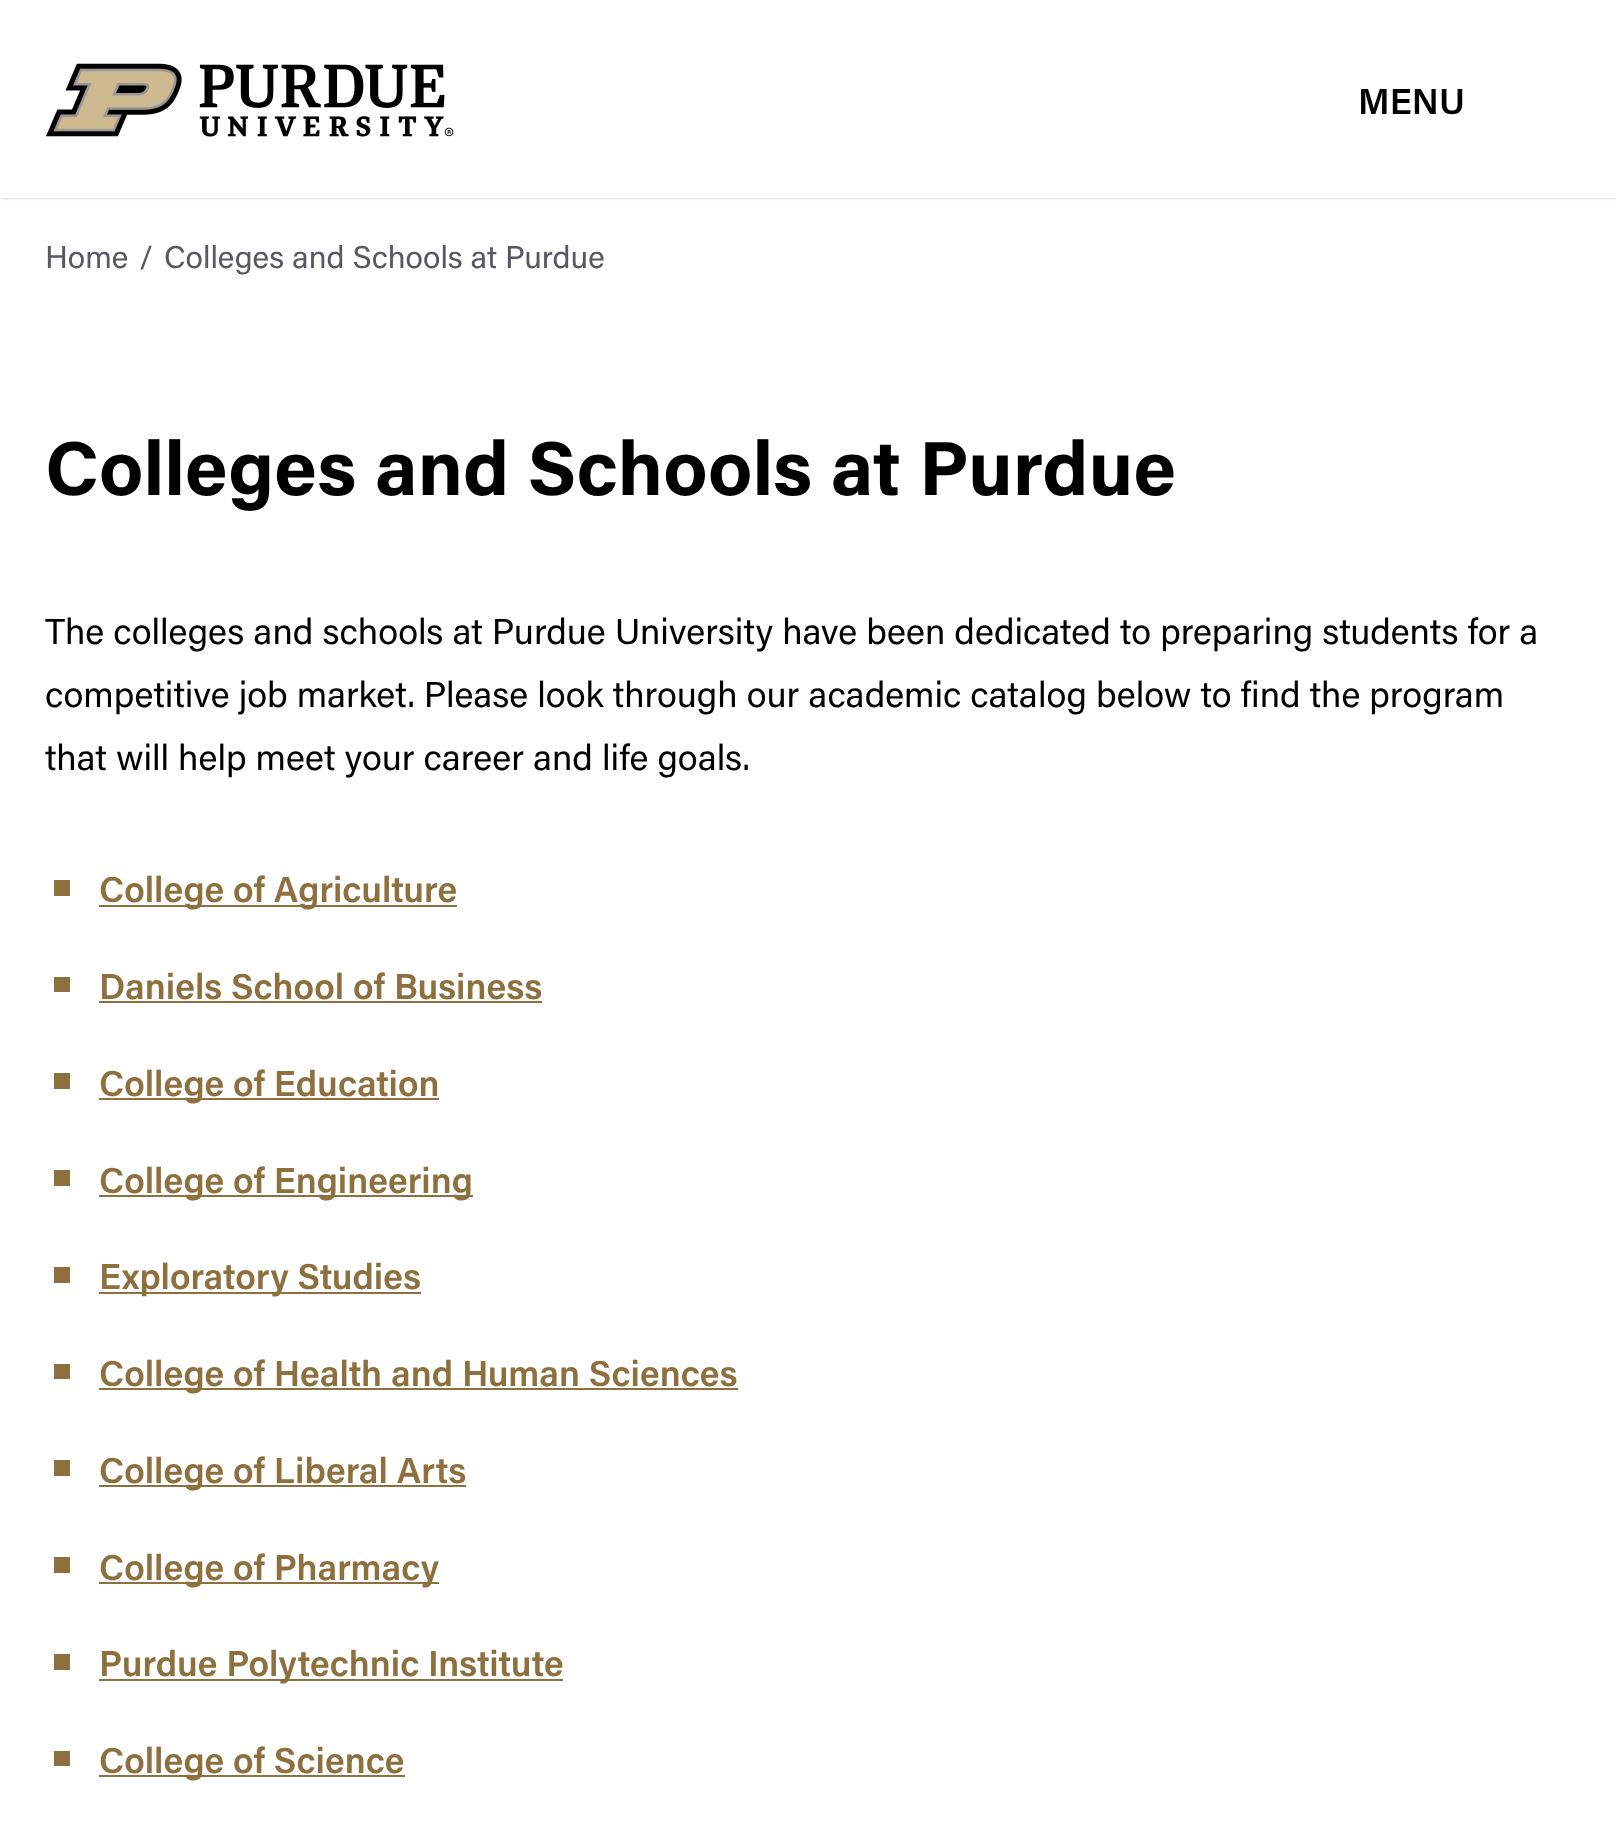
<svg xmlns="http://www.w3.org/2000/svg" xmlns:xlink="http://www.w3.org/1999/xlink" width="1616" height="1843" viewBox="0 0 1616 1843">
<style>
.cls-1{font:600 36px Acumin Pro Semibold;fill:#000000}
.cls-2{font:31.5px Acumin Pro;fill:#555960}
.cls-3{font:bold 76.5px Acumin Pro;fill:#000000}
.cls-4{font:36px Acumin Pro;fill:#000000}
.cls-5{font:600 36px Acumin Pro Semibold;fill:#8e6f3e}
</style>
<defs>
<clipPath id="clip1"><rect x="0" y="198" width="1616" height="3"/></clipPath>
</defs>
<rect width="100%" height="100%" fill="#ffffff"/>
<g clip-path="url(#clip1)">
<rect fill="#000000" fill-opacity="0.2" filter="blur(2px)" x="0" y="0" width="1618" height="198"/>
</g>
<image xlink:href="image0.png" x="46" y="63" width="408" height="74"/>
<rect fill="#8e6f3e" x="54" y="880" width="16" height="16"/>
<rect fill="#8e6f3e" x="99" y="905" width="358" height="2"/>
<rect fill="#8e6f3e" x="54" y="977" width="16" height="15"/>
<rect fill="#8e6f3e" x="99" y="1001" width="443" height="2"/>
<rect fill="#8e6f3e" x="54" y="1073" width="16" height="16"/>
<rect fill="#8e6f3e" x="99" y="1098" width="340" height="2"/>
<rect fill="#8e6f3e" x="54" y="1170" width="16" height="16"/>
<rect fill="#8e6f3e" x="99" y="1195" width="374" height="2"/>
<rect fill="#8e6f3e" x="54" y="1267" width="16" height="16"/>
<rect fill="#8e6f3e" x="99" y="1292" width="322" height="2"/>
<rect fill="#8e6f3e" x="54" y="1364" width="16" height="15"/>
<rect fill="#8e6f3e" x="99" y="1388" width="639" height="2"/>
<rect fill="#8e6f3e" x="54" y="1460" width="16" height="16"/>
<rect fill="#8e6f3e" x="99" y="1485" width="367" height="2"/>
<rect fill="#8e6f3e" x="54" y="1557" width="16" height="16"/>
<rect fill="#8e6f3e" x="99" y="1582" width="340" height="2"/>
<rect fill="#8e6f3e" x="54" y="1654" width="16" height="16"/>
<rect fill="#8e6f3e" x="99" y="1679" width="464" height="2"/>
<rect fill="#8e6f3e" x="54" y="1751" width="16" height="15"/>
<rect fill="#8e6f3e" x="99" y="1775" width="306" height="2"/>
<text class="cls-1" x="1358" y="114">MENU</text>
<text class="cls-2" x="45" y="268">Home</text>
<text class="cls-2" x="139" y="268">/</text>
<text class="cls-2" x="164" y="268">Colleges and Schools at Purdue</text>
<text class="cls-3" x="45" y="495">Colleges and Schools at Purdue</text>
<text class="cls-4"><tspan x="45" y="644">The colleges and schools at Purdue University have been dedicated to preparing students for a</tspan><tspan x="45" y="707">competitive job market. Please look through our academic catalog below to find the program</tspan><tspan x="45" y="770">that will help meet your career and life goals.</tspan></text>
<text class="cls-5" x="99" y="902">College of Agriculture</text>
<text class="cls-5" x="99" y="999">Daniels School of Business</text>
<text class="cls-5" x="99" y="1096">College of Education</text>
<text class="cls-5" x="99" y="1193">College of Engineering</text>
<text class="cls-5" x="99" y="1289">Exploratory Studies</text>
<text class="cls-5" x="99" y="1386">College of Health and Human Sciences</text>
<text class="cls-5" x="99" y="1483">College of Liberal Arts</text>
<text class="cls-5" x="99" y="1580">College of Pharmacy</text>
<text class="cls-5" x="99" y="1676">Purdue Polytechnic Institute</text>
<text class="cls-5" x="99" y="1773">College of Science</text>
</svg>
